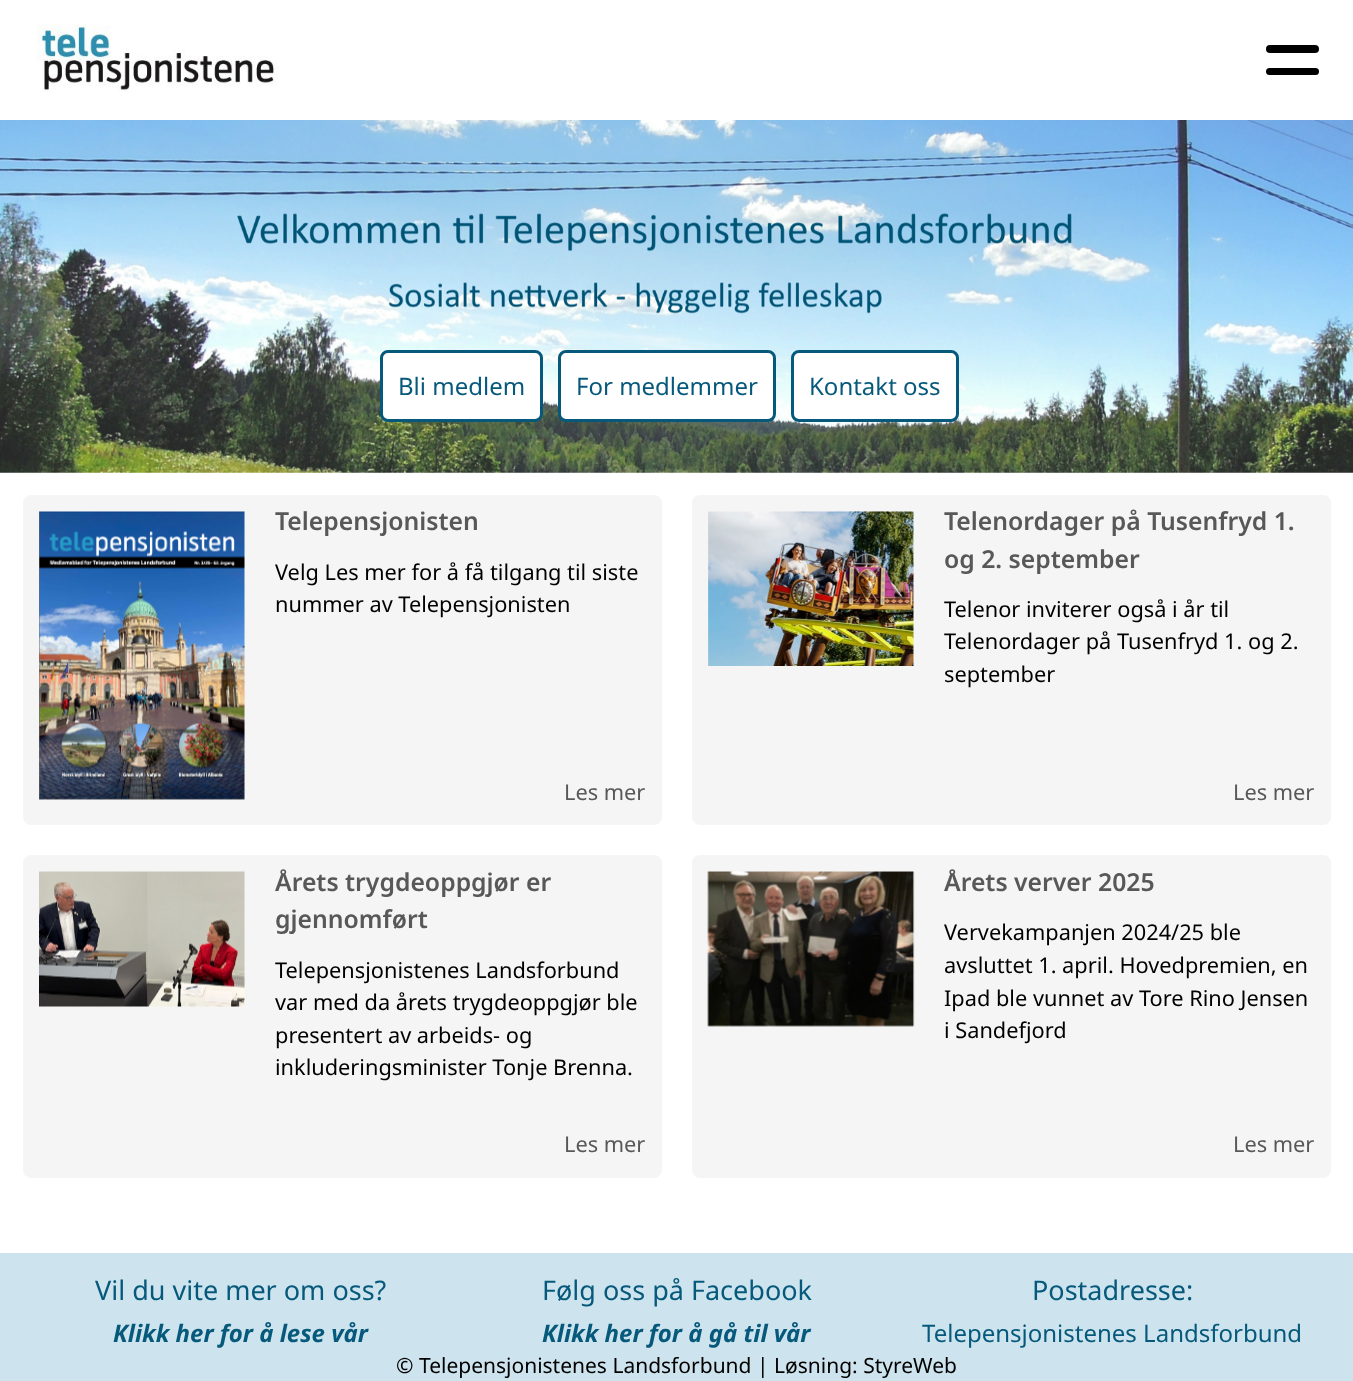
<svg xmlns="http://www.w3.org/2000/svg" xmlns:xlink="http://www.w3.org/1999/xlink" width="1353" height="1381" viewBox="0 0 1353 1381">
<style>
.cls-1{font:24px Noto Sans;fill:#07597b}
.cls-2{font:600 24.75px Noto Sans;fill:#585858}
.cls-3{font:21.75px Noto Sans;fill:#000000}
.cls-4{font:21.75px Noto Sans;fill:#585858}
.cls-5{font:27px Noto Sans;fill:#07597b}
.cls-6{font:italic bold 24px Noto Sans;fill:#07597b}
.cls-7{font:21px Noto Sans;fill:#000000}
</style>
<rect width="100%" height="100%" fill="#ffffff"/>
<image xlink:href="image0.png" x="36" y="24" width="242" height="68"/>
<rect fill="#000000" x="1266" y="45" width="53" height="8" rx="4"/>
<rect fill="#000000" x="1266" y="68" width="53" height="7" rx="3.5"/>
<image xlink:href="image1.png" x="0" y="120" width="1353" height="353"/>
<rect fill="#ffffff" stroke="#07597b" stroke-width="3" x="381.5" y="351.5" width="160" height="69" rx="6.5"/>
<rect fill="#ffffff" stroke="#07597b" stroke-width="3" x="559.5" y="351.5" width="215" height="69" rx="6.5"/>
<rect fill="#ffffff" stroke="#07597b" stroke-width="3" x="792.5" y="351.5" width="165" height="69" rx="6.5"/>
<rect fill="#f5f5f5" x="23" y="495" width="639" height="330" rx="8"/>
<image xlink:href="image2.png" x="39" y="511" width="206" height="289"/>
<rect fill="#f5f5f5" x="692" y="495" width="639" height="330" rx="8"/>
<image xlink:href="image3.png" x="708" y="511" width="206" height="155"/>
<rect fill="#f5f5f5" x="23" y="855" width="639" height="323" rx="8"/>
<image xlink:href="image4.png" x="39" y="871" width="206" height="136"/>
<rect fill="#f5f5f5" x="692" y="855" width="639" height="323" rx="8"/>
<image xlink:href="image5.png" x="707" y="871" width="208" height="156"/>
<rect fill="#cde4ee" x="0" y="1253" width="1353" height="128"/>
<text class="cls-1" x="398" y="395">Bli medlem</text>
<text class="cls-1" x="576" y="395">For medlemmer</text>
<text class="cls-1" x="809" y="395">Kontakt oss</text>
<text class="cls-2" x="275" y="530">Telepensjonisten</text>
<text class="cls-3"><tspan x="275" y="580">Velg Les mer for å få tilgang til siste</tspan><tspan x="275" y="612">nummer av Telepensjonisten</tspan></text>
<text class="cls-4" x="564" y="800">Les mer</text>
<text class="cls-2"><tspan x="944" y="530">Telenordager på Tusenfryd 1.</tspan><tspan x="944" y="568">og 2. september</tspan></text>
<text class="cls-3"><tspan x="944" y="617">Telenor inviterer også i år til</tspan><tspan x="944" y="649">Telenordager på Tusenfryd 1. og 2.</tspan><tspan x="944" y="682">september</tspan></text>
<text class="cls-4" x="1233" y="800">Les mer</text>
<text class="cls-2"><tspan x="275" y="891">Årets trygdeoppgjør er</tspan><tspan x="275" y="928">gjennomført</tspan></text>
<text class="cls-3"><tspan x="275" y="978">Telepensjonistenes Landsforbund</tspan><tspan x="275" y="1010">var med da årets trygdeoppgjør ble</tspan><tspan x="275" y="1043">presentert av arbeids- og</tspan><tspan x="275" y="1075">inkluderingsminister Tonje Brenna.</tspan></text>
<text class="cls-4" x="564" y="1152">Les mer</text>
<text class="cls-2" x="944" y="891">Årets verver 2025</text>
<text class="cls-3"><tspan x="944" y="940">Vervekampanjen 2024/25 ble</tspan><tspan x="944" y="973">avsluttet 1. april. Hovedpremien, en</tspan><tspan x="944" y="1006">Ipad ble vunnet av Tore Rino Jensen</tspan><tspan x="944" y="1038">i Sandefjord</tspan></text>
<text class="cls-4" x="1233" y="1152">Les mer</text>
<text class="cls-5" x="95" y="1300">Vil du vite mer om oss?</text>
<text class="cls-6" x="113" y="1342">Klikk her for å lese vår</text>
<text class="cls-5" x="542" y="1300">Følg oss på Facebook</text>
<text class="cls-6" x="542" y="1342">Klikk her for å gå til vår</text>
<text class="cls-5" x="1032" y="1300">Postadresse:</text>
<text class="cls-1" x="922" y="1342">Telepensjonistenes Landsforbund</text>
<text class="cls-7" x="396" y="1373">© Telepensjonistenes Landsforbund | Løsning: StyreWeb</text>
</svg>
